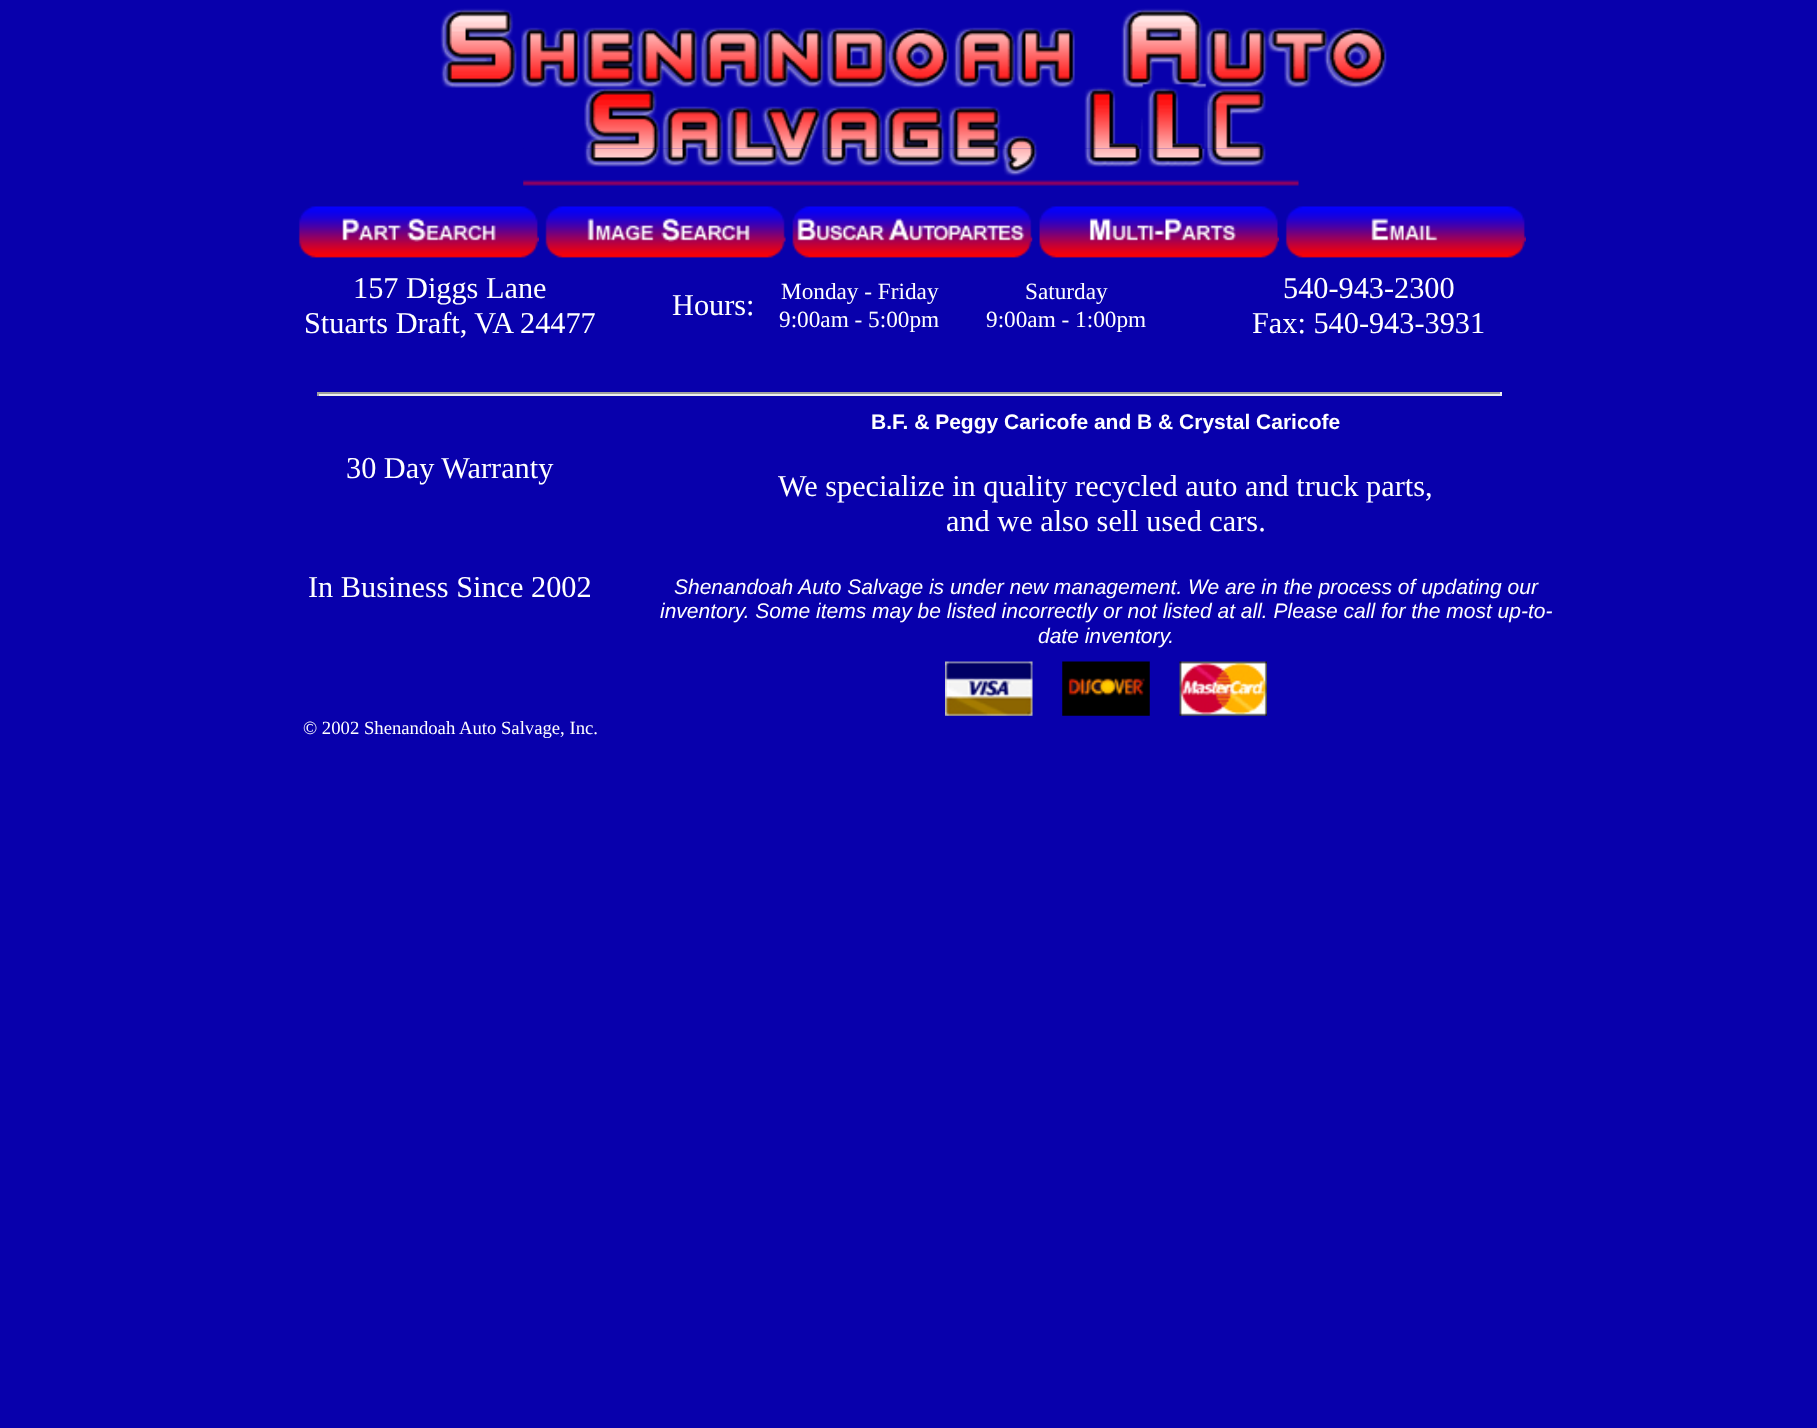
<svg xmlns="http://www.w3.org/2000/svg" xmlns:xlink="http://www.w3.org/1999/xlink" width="1817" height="1428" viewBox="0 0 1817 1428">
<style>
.cls-1{font:30.3px Liberation Serif;fill:#ffffff}
.cls-2{font:23.25px Liberation Serif;fill:#ffffff}
.cls-3{font:bold 21px Liberation Sans;fill:#ffffff}
.cls-4{font:italic 21px Liberation Sans;fill:#ffffff}
.cls-5{font:18.7px Liberation Serif;fill:#ffffff}
</style>
<rect width="100%" height="100%" fill="#0800ac"/>
<image xlink:href="image0.png" x="440" y="8" width="947" height="141"/>
<image xlink:href="image1.png" x="523" y="148" width="776" height="38"/>
<image xlink:href="image2.png" x="298" y="206" width="241" height="52"/>
<image xlink:href="image3.png" x="545" y="206" width="241" height="52"/>
<image xlink:href="image4.png" x="785" y="206" width="248" height="52"/>
<image xlink:href="image5.png" x="1032" y="206" width="248" height="52"/>
<image xlink:href="image6.png" x="1279" y="206" width="247" height="52"/>
<rect fill="#9f9f9f" x="317" y="392" width="1185" height="2"/>
<rect fill="#eeeeee" x="1500" y="392" width="2" height="4"/>
<rect fill="#eeeeee" x="317" y="394" width="1185" height="2"/>
<rect fill="#9f9f9f" x="317" y="392" width="2" height="4"/>
<image xlink:href="image7.png" x="945" y="661" width="88" height="55"/>
<image xlink:href="image8.png" x="1062" y="661" width="88" height="55"/>
<image xlink:href="image9.png" x="1179" y="661" width="88" height="55"/>
<text class="cls-1" x="353" y="298">157 Diggs Lane</text>
<text class="cls-1" x="304" y="333">Stuarts Draft, VA 24477</text>
<text class="cls-1" x="672" y="315">Hours:</text>
<text class="cls-2" x="781" y="299">Monday - Friday</text>
<text class="cls-2" x="779" y="327">9:00am - 5:00pm</text>
<text class="cls-2" x="1025" y="299">Saturday</text>
<text class="cls-2" x="986" y="327">9:00am - 1:00pm</text>
<text class="cls-1" x="1283" y="298">540-943-2300</text>
<text class="cls-1" x="1252" y="333">Fax: 540-943-3931</text>
<text class="cls-1" x="346" y="478">30 Day Warranty</text>
<text class="cls-3" x="871" y="429">B.F. &amp; Peggy Caricofe and B &amp; Crystal Caricofe</text>
<text class="cls-1" x="778" y="496">We specialize in quality recycled auto and truck parts,</text>
<text class="cls-1" x="946" y="531">and we also sell used cars.</text>
<text class="cls-4" x="674" y="594">Shenandoah Auto Salvage is under new management. We are in the process of updating our</text>
<text class="cls-4" x="660" y="618">inventory. Some items may be listed incorrectly or not listed at all. Please call for the most up-to-</text>
<text class="cls-4" x="1038" y="643">date inventory.</text>
<text class="cls-1" x="308" y="597">In Business Since 2002</text>
<text class="cls-5" x="303" y="734">© 2002 Shenandoah Auto Salvage, Inc.</text>
</svg>
